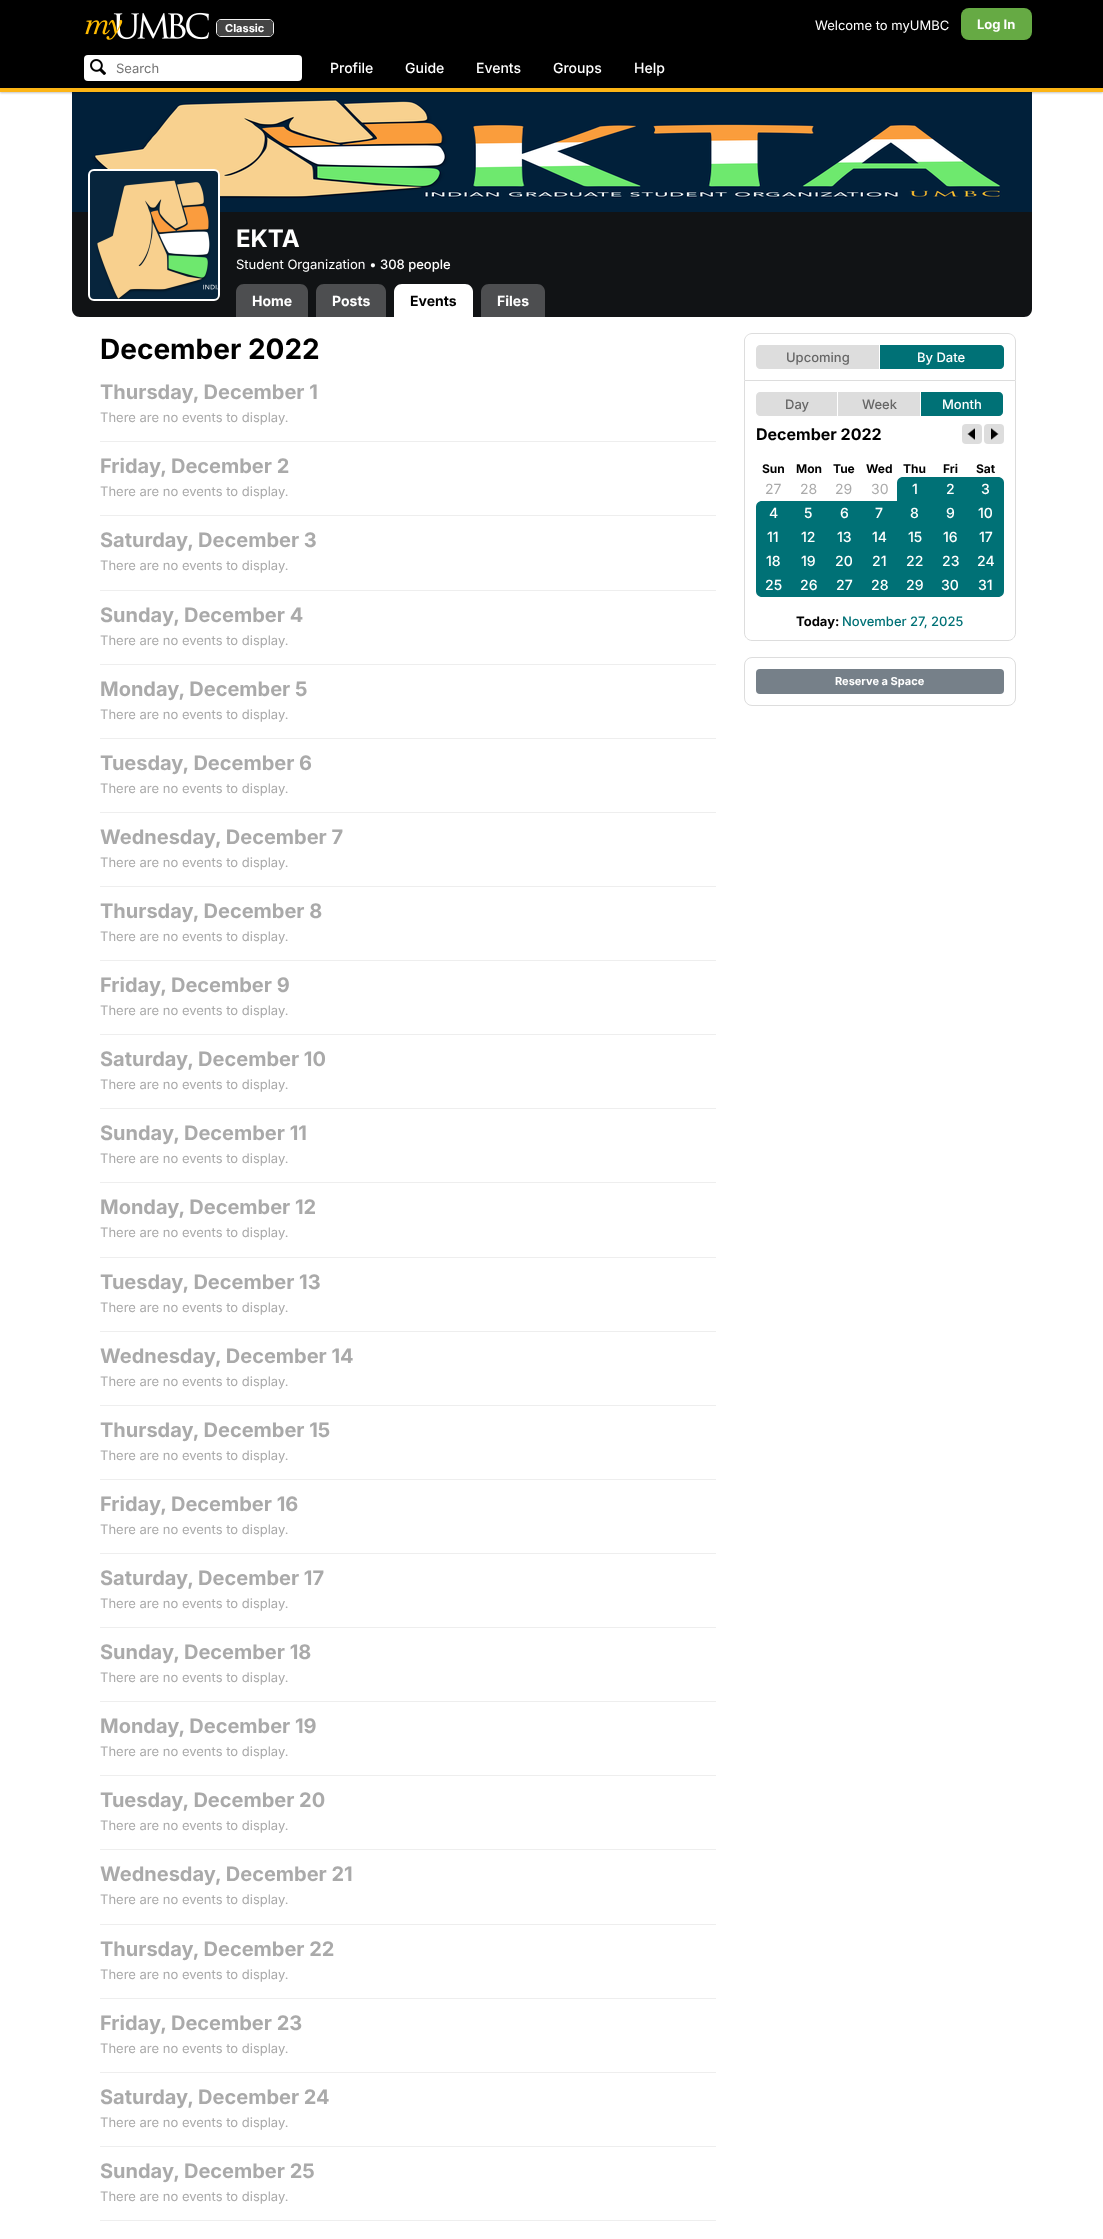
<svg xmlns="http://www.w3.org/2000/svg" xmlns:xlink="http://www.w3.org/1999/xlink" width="1103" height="2239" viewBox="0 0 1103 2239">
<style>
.cls-1{font:bold 11px Inter;fill:#ffffff}
.cls-2{font:13px Inter;fill:#ffffff}
.cls-3{font:bold 13px Inter;fill:#ffffff}
.cls-4{font:13px Inter;fill:#757575}
.cls-5{font:500 14px Inter;fill:#ffffff}
.cls-6{font:bold 24px Inter;fill:#ffffff}
.cls-7{font:500 13px Inter;fill:#ffffff}
.cls-8{font:bold 14px Inter;fill:#ffffff}
.cls-9{font:bold 14px Inter;fill:#000000}
.cls-10{font:bold 28px Inter;fill:#000000}
.cls-11{font:bold 20px Inter;fill:#aaaaaa}
.cls-12{font:13px Inter;fill:#aaaaaa}
.cls-13{font:500 13px Inter;fill:#666666}
.cls-14{font:bold 16px Inter;fill:#000000}
.cls-15{font:bold 12px Inter;fill:#000000}
.cls-16{font:14px Inter;fill:#aaaaaa}
.cls-17{font:bold 13px Inter;fill:#000000}
.cls-18{font:500 13px Inter;fill:#007176}
</style>
<rect width="100%" height="100%" fill="#ffffff"/>
<image xlink:href="image2.png" x="72" y="92" width="960" height="120"/>
<rect fill="#000000" fill-opacity="0.24" filter="blur(1px)" x="0" y="1" width="1103" height="92"/>
<rect fill="#000000" x="0" y="0" width="1103" height="88"/>
<rect fill="#fdb515" x="0" y="88" width="1103" height="4"/>
<image xlink:href="image0.png" x="85" y="12" width="124" height="28"/>
<rect fill="none" stroke="#f0f0f0" x="216.5" y="19.5" width="57" height="17" rx="4.5"/>
<rect fill="#444444" x="217" y="20" width="56" height="16" rx="4"/>
<rect fill="#66aa44" x="961" y="8" width="71" height="32" rx="8"/>
<rect fill="#ffffff" x="84" y="55" width="218" height="26" rx="4"/>
<image xlink:href="image1.png" x="90" y="59" width="16" height="16"/>
<rect fill="#111315" x="72" y="212" width="960" height="66"/>
<path fill="#111315" d="M72 278H1032V309C1032 313.5 1028.5 317 1024 317H80C75.5 317 72 313.5 72 309Z"/>
<image xlink:href="image3.png" x="90" y="171" width="128" height="128"/>
<rect fill="none" stroke="#ffffff" stroke-width="2" x="89" y="170" width="130" height="130" rx="5"/>
<path fill="#4d4e50" d="M244 284H300C304.5 284 308 287.5 308 292V317H236V292C236 287.5 239.5 284 244 284Z"/>
<path fill="#4d4e50" d="M324 284H378C382.5 284 386 287.5 386 292V317H316V292C316 287.5 319.5 284 324 284Z"/>
<path fill="#ffffff" d="M402 284H465C469.5 284 473 287.5 473 292V317H394V292C394 287.5 397.5 284 402 284Z"/>
<path fill="#4d4e50" d="M489 284H537C541.5 284 545 287.5 545 292V317H481V292C481 287.5 484.5 284 489 284Z"/>
<rect fill="#eeeeee" x="100" y="441" width="616" height="1"/>
<rect fill="#eeeeee" x="100" y="515" width="616" height="1"/>
<rect fill="#eeeeee" x="100" y="590" width="616" height="1"/>
<rect fill="#eeeeee" x="100" y="664" width="616" height="1"/>
<rect fill="#eeeeee" x="100" y="738" width="616" height="1"/>
<rect fill="#eeeeee" x="100" y="812" width="616" height="1"/>
<rect fill="#eeeeee" x="100" y="886" width="616" height="1"/>
<rect fill="#eeeeee" x="100" y="960" width="616" height="1"/>
<rect fill="#eeeeee" x="100" y="1034" width="616" height="1"/>
<rect fill="#eeeeee" x="100" y="1108" width="616" height="1"/>
<rect fill="#eeeeee" x="100" y="1182" width="616" height="1"/>
<rect fill="#eeeeee" x="100" y="1257" width="616" height="1"/>
<rect fill="#eeeeee" x="100" y="1331" width="616" height="1"/>
<rect fill="#eeeeee" x="100" y="1405" width="616" height="1"/>
<rect fill="#eeeeee" x="100" y="1479" width="616" height="1"/>
<rect fill="#eeeeee" x="100" y="1553" width="616" height="1"/>
<rect fill="#eeeeee" x="100" y="1627" width="616" height="1"/>
<rect fill="#eeeeee" x="100" y="1701" width="616" height="1"/>
<rect fill="#eeeeee" x="100" y="1775" width="616" height="1"/>
<rect fill="#eeeeee" x="100" y="1849" width="616" height="1"/>
<rect fill="#eeeeee" x="100" y="1924" width="616" height="1"/>
<rect fill="#eeeeee" x="100" y="1998" width="616" height="1"/>
<rect fill="#eeeeee" x="100" y="2072" width="616" height="1"/>
<rect fill="#eeeeee" x="100" y="2146" width="616" height="1"/>
<rect fill="#eeeeee" x="100" y="2220" width="616" height="1"/>
<path fill="#dddddd" fill-rule="evenodd" d="M752 333H1008C1012 333 1016 337 1016 341V380H744V341C744 337 748 333 752 333ZM752 334H1008C1012 334 1015 337 1015 341V380H745V341C745 337 748 334 752 334Z"/>
<path fill="#dddddd" d="M760 345H880V369H760C758 369 756 367 756 365V349C756 347 758 345 760 345Z"/>
<rect fill="#ffffff" x="879" y="345" width="1" height="24"/>
<path fill="#007176" d="M880 345H1000C1002 345 1004 347 1004 349V365C1004 367 1002 369 1000 369H880Z"/>
<path fill="none" stroke="#dddddd" d="M744.5 380.5H1015.5V633C1015.5 637 1012 640.5 1008 640.5H752C748 640.5 744.5 637 744.5 633Z"/>
<path fill="#dddddd" d="M760 392H838V416H760C758 416 756 414 756 412V396C756 394 758 392 760 392Z"/>
<rect fill="#ffffff" x="837" y="392" width="1" height="24"/>
<rect fill="#dddddd" x="838" y="392" width="82" height="24"/>
<path fill="#007176" d="M921 392H999C1001 392 1003 394 1003 396V412C1003 414 1001 416 999 416H921Z"/>
<rect fill="#dddddd" x="962" y="424" width="20" height="20" rx="4"/>
<image xlink:href="image4.png" x="967" y="428" width="8" height="12"/>
<rect fill="#dddddd" x="984" y="424" width="20" height="20" rx="4"/>
<image xlink:href="image5.png" x="991" y="428" width="8" height="12"/>
<path fill="#007176" d="M903 477H933V501H897V483C897 479.5 899.5 477 903 477Z"/>
<rect fill="#007176" x="933" y="477" width="35" height="24"/>
<path fill="#007176" d="M968 477H998C1001.5 477 1004 479.5 1004 483V501H968Z"/>
<path fill="#007176" d="M762 501H791V525H756V507C756 503.5 758.5 501 762 501Z"/>
<rect fill="#007176" x="791" y="501" width="213" height="24"/>
<rect fill="#007176" x="756" y="525" width="248" height="24"/>
<rect fill="#007176" x="756" y="549" width="248" height="24"/>
<path fill="#007176" d="M756 573H791V597H762C758.5 597 756 594.5 756 591Z"/>
<rect fill="#007176" x="791" y="573" width="177" height="24"/>
<path fill="#007176" d="M968 573H1004V591C1004 594.5 1001.5 597 998 597H968Z"/>
<rect fill="none" stroke="#dddddd" x="744.5" y="657.5" width="271" height="48" rx="7.5"/>
<rect fill="#768089" x="756" y="669" width="248" height="25" rx="4"/>
<text class="cls-1" x="225" y="32">Classic</text>
<text class="cls-2" x="815" y="30">Welcome to myUMBC</text>
<text class="cls-3" x="977" y="29">Log In</text>
<text class="cls-4" x="116" y="73">Search</text>
<text class="cls-5" x="330" y="73">Profile</text>
<text class="cls-5" x="405" y="73">Guide</text>
<text class="cls-5" x="476" y="73">Events</text>
<text class="cls-5" x="553" y="73">Groups</text>
<text class="cls-5" x="634" y="73">Help</text>
<text class="cls-6" x="236" y="247">EKTA</text>
<text class="cls-2" x="236" y="269">Student Organization •</text>
<text class="cls-7" x="380" y="269">308 people</text>
<text class="cls-8" x="252" y="306">Home</text>
<text class="cls-8" x="332" y="306">Posts</text>
<text class="cls-9" x="410" y="306">Events</text>
<text class="cls-8" x="497" y="306">Files</text>
<text class="cls-10" x="100" y="359">December 2022</text>
<text class="cls-11" x="100" y="399">Thursday, December 1</text>
<text class="cls-12" x="100" y="422">There are no events to display.</text>
<text class="cls-11" x="100" y="473">Friday, December 2</text>
<text class="cls-12" x="100" y="496">There are no events to display.</text>
<text class="cls-11" x="100" y="547">Saturday, December 3</text>
<text class="cls-12" x="100" y="570">There are no events to display.</text>
<text class="cls-11" x="100" y="622">Sunday, December 4</text>
<text class="cls-12" x="100" y="645">There are no events to display.</text>
<text class="cls-11" x="100" y="696">Monday, December 5</text>
<text class="cls-12" x="100" y="719">There are no events to display.</text>
<text class="cls-11" x="100" y="770">Tuesday, December 6</text>
<text class="cls-12" x="100" y="793">There are no events to display.</text>
<text class="cls-11" x="100" y="844">Wednesday, December 7</text>
<text class="cls-12" x="100" y="867">There are no events to display.</text>
<text class="cls-11" x="100" y="918">Thursday, December 8</text>
<text class="cls-12" x="100" y="941">There are no events to display.</text>
<text class="cls-11" x="100" y="992">Friday, December 9</text>
<text class="cls-12" x="100" y="1015">There are no events to display.</text>
<text class="cls-11" x="100" y="1066">Saturday, December 10</text>
<text class="cls-12" x="100" y="1089">There are no events to display.</text>
<text class="cls-11" x="100" y="1140">Sunday, December 11</text>
<text class="cls-12" x="100" y="1163">There are no events to display.</text>
<text class="cls-11" x="100" y="1214">Monday, December 12</text>
<text class="cls-12" x="100" y="1237">There are no events to display.</text>
<text class="cls-11" x="100" y="1289">Tuesday, December 13</text>
<text class="cls-12" x="100" y="1312">There are no events to display.</text>
<text class="cls-11" x="100" y="1363">Wednesday, December 14</text>
<text class="cls-12" x="100" y="1386">There are no events to display.</text>
<text class="cls-11" x="100" y="1437">Thursday, December 15</text>
<text class="cls-12" x="100" y="1460">There are no events to display.</text>
<text class="cls-11" x="100" y="1511">Friday, December 16</text>
<text class="cls-12" x="100" y="1534">There are no events to display.</text>
<text class="cls-11" x="100" y="1585">Saturday, December 17</text>
<text class="cls-12" x="100" y="1608">There are no events to display.</text>
<text class="cls-11" x="100" y="1659">Sunday, December 18</text>
<text class="cls-12" x="100" y="1682">There are no events to display.</text>
<text class="cls-11" x="100" y="1733">Monday, December 19</text>
<text class="cls-12" x="100" y="1756">There are no events to display.</text>
<text class="cls-11" x="100" y="1807">Tuesday, December 20</text>
<text class="cls-12" x="100" y="1830">There are no events to display.</text>
<text class="cls-11" x="100" y="1881">Wednesday, December 21</text>
<text class="cls-12" x="100" y="1904">There are no events to display.</text>
<text class="cls-11" x="100" y="1956">Thursday, December 22</text>
<text class="cls-12" x="100" y="1979">There are no events to display.</text>
<text class="cls-11" x="100" y="2030">Friday, December 23</text>
<text class="cls-12" x="100" y="2053">There are no events to display.</text>
<text class="cls-11" x="100" y="2104">Saturday, December 24</text>
<text class="cls-12" x="100" y="2127">There are no events to display.</text>
<text class="cls-11" x="100" y="2178">Sunday, December 25</text>
<text class="cls-12" x="100" y="2201">There are no events to display.</text>
<text class="cls-13" x="786" y="362">Upcoming</text>
<text class="cls-7" x="917" y="362">By Date</text>
<text class="cls-13" x="785" y="409">Day</text>
<text class="cls-13" x="862" y="409">Week</text>
<text class="cls-7" x="942" y="409">Month</text>
<text class="cls-14" x="756" y="440">December 2022</text>
<text class="cls-15" x="762" y="473">Sun</text>
<text class="cls-15" x="796" y="473">Mon</text>
<text class="cls-15" x="833" y="473">Tue</text>
<text class="cls-15" x="866" y="473">Wed</text>
<text class="cls-15" x="903" y="473">Thu</text>
<text class="cls-15" x="943" y="473">Fri</text>
<text class="cls-15" x="976" y="473">Sat</text>
<text class="cls-16" x="765" y="494">27</text>
<text class="cls-16" x="800" y="494">28</text>
<text class="cls-16" x="835" y="494">29</text>
<text class="cls-16" x="871" y="494">30</text>
<text class="cls-5" x="912" y="494">1</text>
<text class="cls-5" x="946" y="494">2</text>
<text class="cls-5" x="981" y="494">3</text>
<text class="cls-5" x="769" y="518">4</text>
<text class="cls-5" x="804" y="518">5</text>
<text class="cls-5" x="840" y="518">6</text>
<text class="cls-5" x="875" y="518">7</text>
<text class="cls-5" x="910" y="518">8</text>
<text class="cls-5" x="946" y="518">9</text>
<text class="cls-5" x="978" y="518">10</text>
<text class="cls-5" x="767" y="542">11</text>
<text class="cls-5" x="801" y="542">12</text>
<text class="cls-5" x="837" y="542">13</text>
<text class="cls-5" x="872" y="542">14</text>
<text class="cls-5" x="908" y="542">15</text>
<text class="cls-5" x="943" y="542">16</text>
<text class="cls-5" x="979" y="542">17</text>
<text class="cls-5" x="766" y="566">18</text>
<text class="cls-5" x="801" y="566">19</text>
<text class="cls-5" x="835" y="566">20</text>
<text class="cls-5" x="872" y="566">21</text>
<text class="cls-5" x="906" y="566">22</text>
<text class="cls-5" x="942" y="566">23</text>
<text class="cls-5" x="977" y="566">24</text>
<text class="cls-5" x="765" y="590">25</text>
<text class="cls-5" x="800" y="590">26</text>
<text class="cls-5" x="836" y="590">27</text>
<text class="cls-5" x="871" y="590">28</text>
<text class="cls-5" x="906" y="590">29</text>
<text class="cls-5" x="941" y="590">30</text>
<text class="cls-5" x="978" y="590">31</text>
<text class="cls-17" x="796" y="626">Today:</text>
<text class="cls-18" x="842" y="626">November 27, 2025</text>
<text class="cls-1" x="835" y="685">Reserve a Space</text>
</svg>
